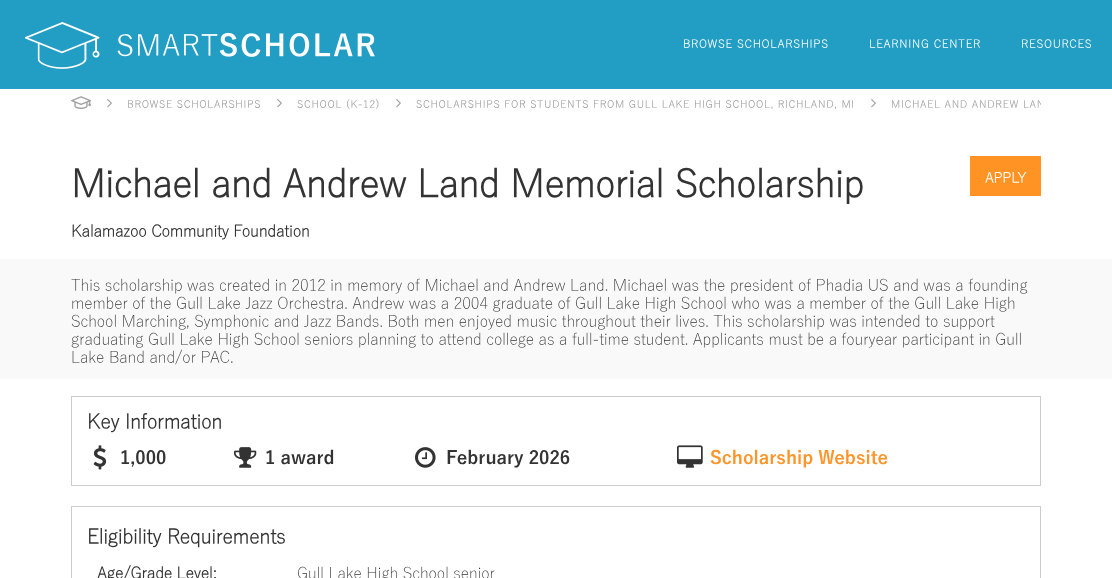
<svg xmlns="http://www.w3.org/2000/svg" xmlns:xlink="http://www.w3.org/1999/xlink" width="1112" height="578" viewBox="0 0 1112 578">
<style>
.cls-1{font:bold 11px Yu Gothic;letter-spacing:1px;fill:#ffffff}
.cls-2{font:bold 10px Yu Gothic;letter-spacing:1px;fill:#a2a1a1}
.cls-3{font:bold 38px Yu Gothic;fill:#343333}
.cls-4{font:bold 14px Yu Gothic;fill:#ffffff}
.cls-5{font:bold 16px Yu Gothic;fill:#343333}
.cls-6{font:300 16px Yu Gothic;fill:#343333}
.cls-7{font:bold 20px Yu Gothic;fill:#343333}
.cls-8{font:bold 18px 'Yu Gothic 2';fill:#343333}
.cls-9{font:bold 18px 'Yu Gothic 2';fill:#ff9429}
</style>
<defs>
<clipPath id="clip1"><rect x="71" y="89" width="970" height="27"/></clipPath>
</defs>
<rect width="100%" height="100%" fill="#ffffff"/>
<rect fill="#229dc4" x="0" y="0" width="1112" height="89"/>
<image xlink:href="image0.png" x="25" y="22" width="350" height="47"/>
<image xlink:href="image1.png" x="71" y="96" width="20" height="13"/>
<image xlink:href="image2.png" x="107" y="99" width="5" height="9"/>
<image xlink:href="image2.png" x="277" y="99" width="5" height="9"/>
<image xlink:href="image2.png" x="396" y="99" width="5" height="9"/>
<image xlink:href="image2.png" x="871" y="99" width="5" height="9"/>
<rect fill="#ff9424" x="970" y="156" width="71" height="40"/>
<rect fill="#f9f9f9" x="0" y="259" width="1112" height="120"/>
<rect fill="none" stroke="#cccccc" x="71.5" y="396.5" width="969" height="89"/>
<image xlink:href="image3.png" x="93" y="445" width="14" height="25"/>
<image xlink:href="image4.png" x="234" y="447" width="23" height="21"/>
<image xlink:href="image5.png" x="415" y="447" width="21" height="21"/>
<image xlink:href="image6.png" x="677" y="445" width="26" height="23"/>
<rect fill="none" stroke="#cccccc" x="71.5" y="506.5" width="969" height="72"/>
<text class="cls-1" x="683" y="48">BROWSE SCHOLARSHIPS</text>
<text class="cls-1" x="869" y="48">LEARNING CENTER</text>
<text class="cls-1" x="1021" y="48">RESOURCES</text>
<text class="cls-2" x="127" y="108">BROWSE SCHOLARSHIPS</text>
<text class="cls-2" x="297" y="108">SCHOOL (K-12)</text>
<text class="cls-2" x="416" y="108">SCHOLARSHIPS FOR STUDENTS FROM GULL LAKE HIGH SCHOOL, RICHLAND, MI</text>
<g clip-path="url(#clip1)">
<text class="cls-2" x="891" y="108">MICHAEL AND ANDREW LAN</text>
</g>
<text class="cls-3" x="71" y="198">Michael and Andrew Land Memorial Scholarship</text>
<text class="cls-4" x="985" y="183">APPLY</text>
<text class="cls-5" x="71" y="237">Kalamazoo Community Foundation</text>
<text class="cls-6"><tspan x="71" y="291">This scholarship was created in 2012 in memory of Michael and Andrew Land. Michael was the president of Phadia US and was a founding</tspan><tspan x="71" y="309">member of the Gull Lake Jazz Orchestra. Andrew was a 2004 graduate of Gull Lake High School who was a member of the Gull Lake High</tspan><tspan x="71" y="327">School Marching, Symphonic and Jazz Bands. Both men enjoyed music throughout their lives. This scholarship was intended to support</tspan><tspan x="71" y="345">graduating Gull Lake High School seniors planning to attend college as a full-time student. Applicants must be a fouryear participant in Gull</tspan><tspan x="71" y="363">Lake Band and/or PAC.</tspan></text>
<text class="cls-7" x="87" y="429">Key Information</text>
<text class="cls-8" x="120" y="464">1,000</text>
<text class="cls-8" x="265" y="464">1 award</text>
<text class="cls-8" x="446" y="464">February 2026</text>
<text class="cls-9" x="710" y="464">Scholarship Website</text>
<text class="cls-7" x="87" y="544">Eligibility Requirements</text>
<text class="cls-5" x="97" y="579">Age/Grade Level:</text>
<text class="cls-6" x="297" y="579">Gull Lake High School senior</text>
</svg>
